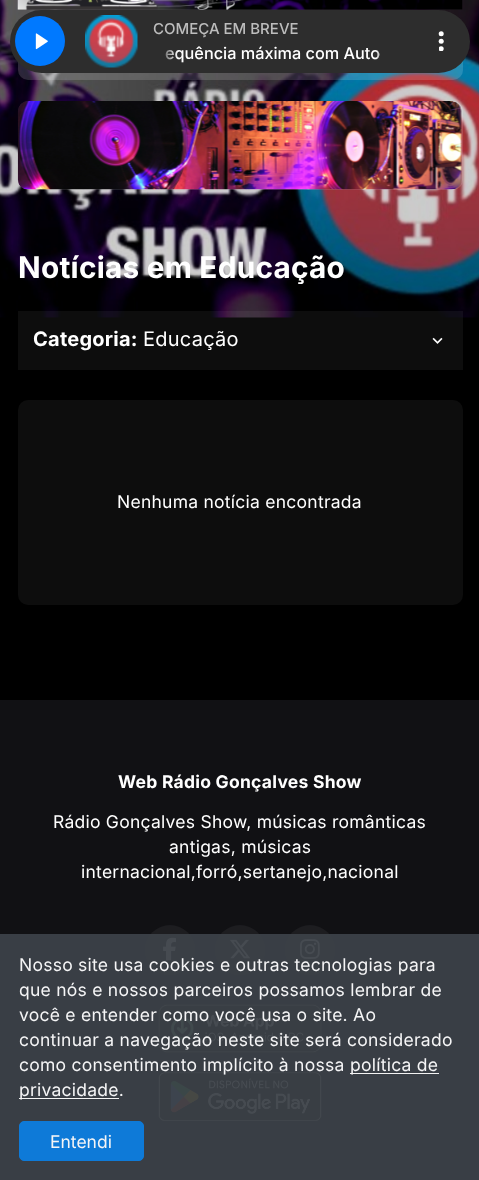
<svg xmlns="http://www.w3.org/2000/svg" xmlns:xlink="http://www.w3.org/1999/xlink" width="479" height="1180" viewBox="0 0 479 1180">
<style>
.cls-1{font:500 15px Inter;fill:#bdbdbd}
.cls-2{font:500 16.25px Inter;fill:#ffffff}
.cls-3{font:bold 29.75px Inter;letter-spacing:0.25px;fill:#ffffff}
.cls-4{font:bold 20px Inter;letter-spacing:0.25px;fill:#ffffff}
.cls-5{font:20px Inter;letter-spacing:0.25px;fill:#ffffff}
.cls-6{font:17.5px Inter;letter-spacing:0.25px;fill:#ffffff}
.cls-7{font:bold 17.5px Inter;letter-spacing:0.25px;fill:#ffffff}
.cls-8{font:17.5px Inter;letter-spacing:0.25px;fill:#f5f5f6}
.cls-9{font:17.5px Inter;fill:#f5f5f6}
</style>
<defs>
<clipPath id="clip1"><rect x="439" y="31" width="5" height="20"/></clipPath>
<linearGradient id="g1" gradientUnits="userSpaceOnUse" x1="153" y1="53" x2="178" y2="53"><stop offset="0.2" stop-color="#2d2d2d"/><stop offset="1" stop-color="#2d2d2d" stop-opacity="0"/></linearGradient>
<linearGradient id="g2" gradientUnits="userSpaceOnUse" x1="401" y1="53" x2="376" y2="53"><stop offset="0.2" stop-color="#2d2d2d"/><stop offset="1" stop-color="#2d2d2d" stop-opacity="0"/></linearGradient>
<linearGradient id="g3" gradientUnits="userSpaceOnUse" x1="401" y1="41" x2="376" y2="41"><stop offset="0.2" stop-color="#2d2d2d"/><stop offset="1" stop-color="#2d2d2d" stop-opacity="0"/></linearGradient>
</defs>
<rect width="100%" height="100%" fill="#000000"/>
<image xlink:href="image0.png" x="0" y="0" width="479" height="318"/>
<rect fill="#ffffff" fill-opacity="0.15" x="18" y="28" width="445" height="52" rx="10"/>
<rect fill="#2d2d2d" x="10" y="10" width="460" height="63" rx="31.5"/>
<circle fill="#0079ff" cx="40" cy="41" r="25"/>
<image xlink:href="image1.png" x="35" y="33" width="13" height="17"/>
<image xlink:href="image2.png" x="85" y="15" width="53" height="53"/>
<g clip-path="url(#clip1)">
<circle fill="#ffffff" cx="441.2" cy="48.8" r="2.5"/>
</g>
<circle fill="#ffffff" cx="441.2" cy="41.2" r="2.5"/>
<circle fill="#ffffff" cx="441.2" cy="33.8" r="2.5"/>
<image xlink:href="image3.png" x="17" y="0" width="446" height="10"/>
<rect fill="#ffffff" fill-opacity="0.15" x="18" y="101" width="445" height="89" rx="10"/>
<image xlink:href="image4.png" x="17" y="101" width="445" height="89"/>
<rect fill="#ffffff" fill-opacity="0.05" x="18" y="311" width="445" height="59"/>
<image xlink:href="image5.png" x="432" y="337" width="11" height="7"/>
<rect fill="#0d0d0d" x="18" y="400" width="445" height="205" rx="10"/>
<rect fill="#111114" x="0" y="700" width="479" height="480"/>
<circle fill="#1d1d20" cx="170" cy="950" r="25"/>
<image xlink:href="image6.png" x="163" y="937" width="13" height="24"/>
<circle fill="#1d1d20" cx="240" cy="950" r="25"/>
<image xlink:href="image7.png" x="230" y="939" width="20" height="20"/>
<circle fill="#1d1d20" cx="310" cy="950" r="25"/>
<image xlink:href="image8.png" x="300" y="939" width="20" height="20"/>
<image xlink:href="image9.png" x="158" y="1004" width="164" height="49"/>
<image xlink:href="image10.png" x="158" y="1072" width="164" height="49"/>
<rect fill="#3c4148" fill-opacity="0.95" x="0" y="934" width="479" height="246"/>
<rect fill="#f3f3f3" x="350" y="1073" width="89" height="1"/>
<rect fill="#f3f3f3" x="19" y="1098" width="100" height="1"/>
<rect fill="#0e7ad8" stroke="#0e7ad8" x="19.5" y="1121.5" width="124" height="39" rx="4.5"/>
<text class="cls-1" x="153" y="34">COMEÇA EM BREVE</text>
<text class="cls-2" x="165" y="59">equência máxima com Auto</text>
<rect fill="url(#g1)" x="165" y="50" width="13" height="10"/>
<rect fill="url(#g2)" x="376" y="50" width="3" height="9"/>
<rect fill="url(#g3)" x="376" y="50" width="3" height="9"/>
<text class="cls-3" x="18" y="278">Notícias em Educação</text>
<text class="cls-4" x="33" y="346">Categoria:</text>
<text class="cls-5" x="143" y="346">Educação</text>
<text class="cls-6" x="117" y="508">Nenhuma notícia encontrada</text>
<text class="cls-7" x="118" y="788">Web Rádio Gonçalves Show</text>
<text class="cls-6" x="53" y="828">Rádio Gonçalves Show, músicas românticas</text>
<text class="cls-6" x="169" y="853">antigas, músicas</text>
<text class="cls-6" x="81" y="878">internacional,forró,sertanejo,nacional</text>
<text class="cls-8"><tspan x="19" y="971">Nosso site usa cookies e outras tecnologias para</tspan><tspan x="19" y="996">que nós e nossos parceiros possamos lembrar de</tspan><tspan x="19" y="1021">você e entender como você usa o site. Ao</tspan><tspan x="19" y="1046">continuar a navegação neste site será considerado</tspan><tspan x="19" y="1071">como consentimento implícito à nossa</tspan></text>
<text class="cls-8" x="350" y="1071">política de</text>
<text class="cls-8" x="19" y="1096">privacidade.</text>
<text class="cls-9" x="50" y="1148">Entendi</text>
</svg>
